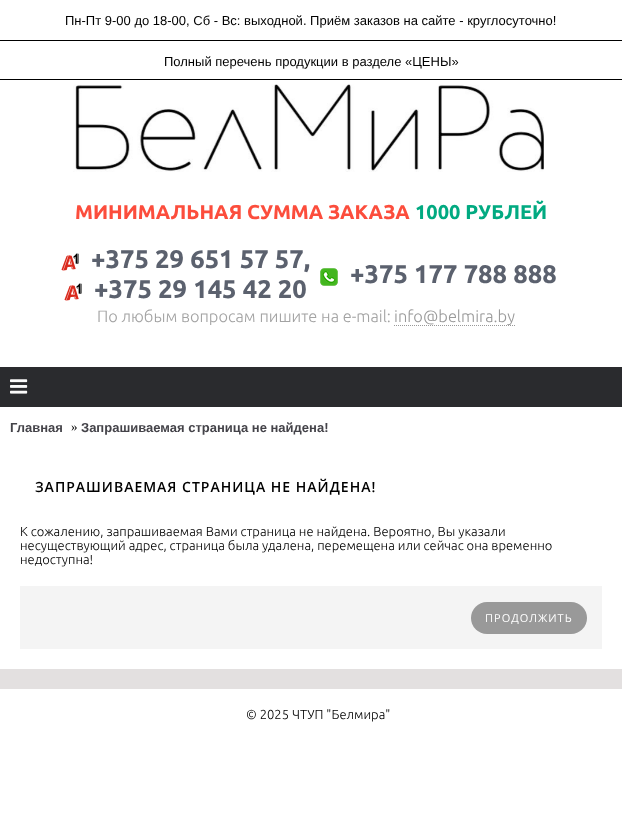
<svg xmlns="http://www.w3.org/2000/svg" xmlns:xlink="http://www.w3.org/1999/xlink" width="622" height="834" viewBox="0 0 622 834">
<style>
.cls-1{font:13px Liberation Sans;fill:#000000}
.cls-2{font:bold 20px Ubuntu;fill:#fc4d3c}
.cls-3{font:bold 20px Ubuntu;fill:#01aa81}
.cls-4{font:bold 25.5px Ubuntu;fill:#5b616e}
.cls-5{font:300 16.4px Ubuntu;fill:#a3a3a3}
.cls-6{font:300 16.4px Ubuntu;fill:#999999}
.cls-7{font:bold 13px Liberation Sans;fill:#444349}
.cls-8{font:13px Liberation Serif;fill:#000000}
.cls-9{font:600 14px Open Sans;letter-spacing:1px;fill:#000000}
.cls-10{font:300 13px Ubuntu;fill:#000000}
.cls-11{font:11px Open Sans;letter-spacing:1px;fill:#ffffff}
</style>
<rect width="100%" height="100%" fill="#ffffff"/>
<rect fill="#000000" x="0" y="40" width="622" height="1"/>
<rect fill="#000000" x="0" y="79" width="622" height="1"/>
<image xlink:href="image0.png" x="73" y="84" width="471" height="88"/>
<image xlink:href="image1.png" x="61" y="253" width="18" height="18"/>
<image xlink:href="image1.png" x="64" y="283" width="18" height="18"/>
<image xlink:href="image2.png" x="320" y="268" width="18" height="18"/>
<path fill="none" stroke="#999999" stroke-dasharray="1 1" d="M394 325.5H515"/>
<rect fill="#2a2b2e" x="0" y="367" width="622" height="40"/>
<image xlink:href="image3.png" x="10" y="379" width="18" height="15"/>
<rect fill="#f4f4f4" x="20" y="586" width="582" height="63"/>
<rect fill="#999999" x="471" y="602" width="116" height="32" rx="16"/>
<rect fill="#e3e0e0" x="0" y="669" width="622" height="20"/>
<text class="cls-1" x="65" y="25">Пн-Пт 9-00 до 18-00, Сб - Вс: выходной. Приём заказов на сайте - круглосуточно!</text>
<text class="cls-1" x="164" y="66">Полный перечень продукции в разделе «ЦЕНЫ»</text>
<text class="cls-2" x="75" y="219">МИНИМАЛЬНАЯ СУММА ЗАКАЗА</text>
<text class="cls-3" x="415" y="219">1000 РУБЛЕЙ</text>
<text class="cls-4" x="91" y="268">+375 29 651 57 57,</text>
<text class="cls-4" x="94" y="298">+375 29 145 42 20</text>
<text class="cls-4" x="350" y="283">+375 177 788 888</text>
<text class="cls-5" x="97" y="322">По любым вопросам пишите на e-mail:</text>
<text class="cls-6" x="394" y="322">info@belmira.by</text>
<text class="cls-7" x="10" y="432">Главная</text>
<text class="cls-8" x="71" y="431">»</text>
<text class="cls-7" x="81" y="432">Запрашиваемая страница не найдена!</text>
<text class="cls-9" x="35" y="492">ЗАПРАШИВАЕМАЯ СТРАНИЦА НЕ НАЙДЕНА!</text>
<text class="cls-10"><tspan x="20" y="536">К сожалению, запрашиваемая Вами страница не найдена. Вероятно, Вы указали</tspan><tspan x="20" y="550">несуществующий адрес, страница была удалена, перемещена или сейчас она временно</tspan><tspan x="20" y="564">недоступна!</tspan></text>
<text class="cls-11" x="485" y="622">ПРОДОЛЖИТЬ</text>
<text class="cls-10" x="246" y="719">© 2025 ЧТУП "Белмира"</text>
</svg>
